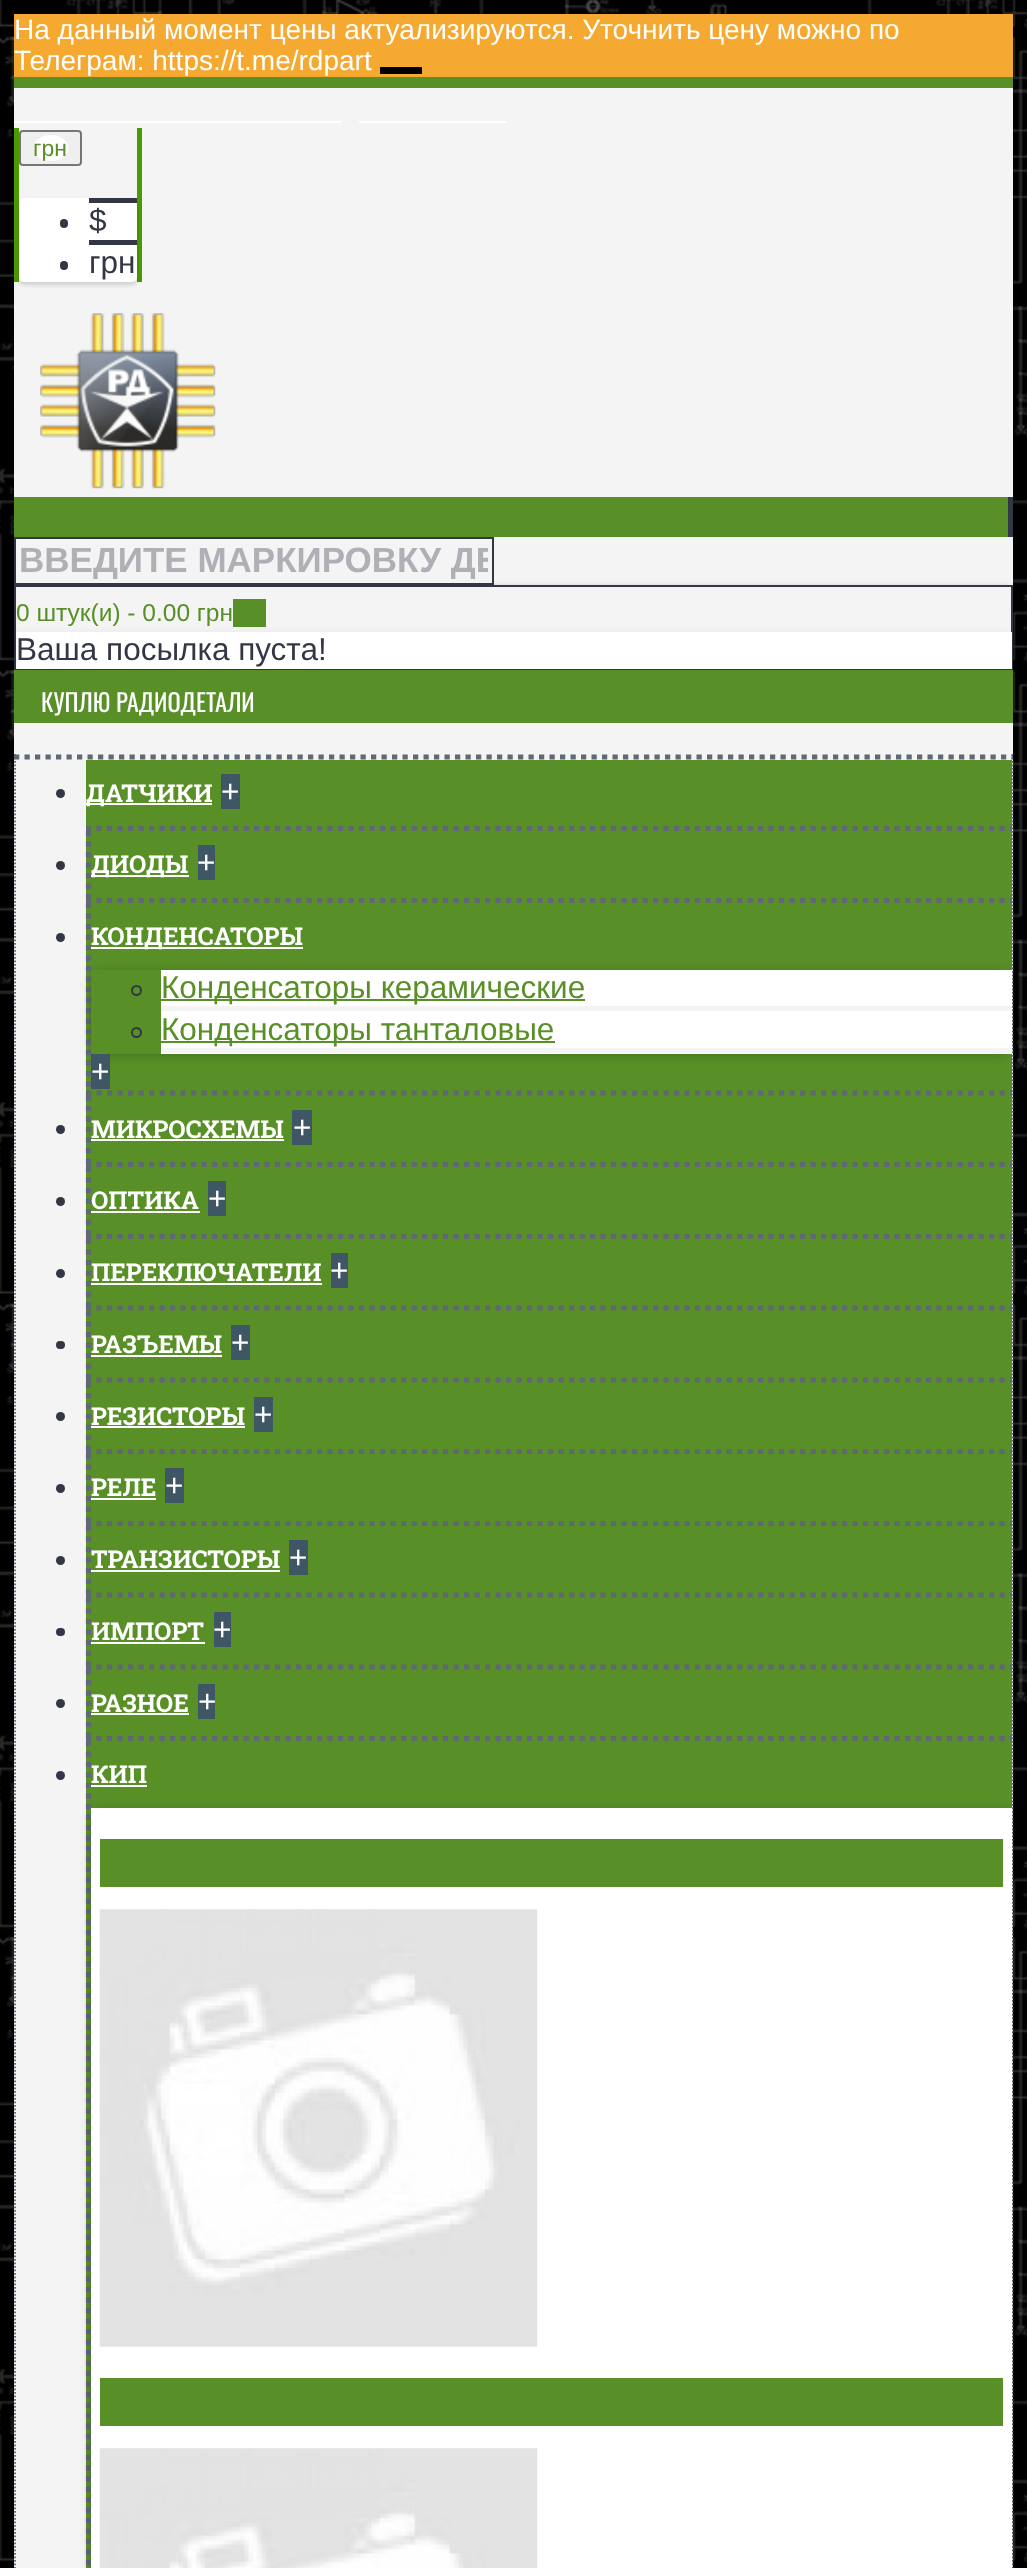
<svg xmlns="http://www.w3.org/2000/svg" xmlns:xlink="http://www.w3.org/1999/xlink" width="1027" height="2568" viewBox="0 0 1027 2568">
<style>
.cls-1{font:28px Liberation Sans;fill:#ffffff}
.cls-2{font:23px Liberation Sans;fill:#588f27}
.cls-3{font:31.5px Liberation Sans;fill:#333745}
.cls-4{font:bold 35px Liberation Sans;fill:#afb0b5}
.cls-5{font:24.5px Liberation Sans;fill:#588f27}
.cls-6{font:24.5px Oswald;fill:#ffffff}
.cls-7{font:bold 24.5px Roboto Slab;fill:#ffffff}
.cls-8{font:31.5px Liberation Sans;fill:#ffffff}
.cls-9{font:31.5px Liberation Sans;fill:#588f27}
</style>
<defs>
<clipPath id="clip1"><path d="M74 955H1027V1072H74ZM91 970H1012V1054H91Z" clip-rule="evenodd"/></clipPath>
<clipPath id="clip2"><rect x="19" y="541" width="469" height="40"/></clipPath>
</defs>
<rect width="100%" height="100%" fill="#ffffff"/>
<image xlink:href="image0.png" x="0" y="0" width="1027" height="2568"/>
<rect fill="#f6a930" x="14" y="14" width="999" height="63"/>
<rect fill="#000000" x="380" y="67" width="42" height="7"/>
<rect fill="#f4f4f4" x="14" y="88" width="999" height="2480"/>
<rect fill="#588f27" x="14" y="77" width="999" height="11"/>
<rect fill="#ffffff" x="14" y="121" width="327" height="2"/>
<rect fill="#ffffff" x="359" y="121" width="147" height="2"/>
<rect fill="#4a9a02" x="137" y="128" width="5" height="154"/>
<rect fill="#4a9a02" x="14" y="128" width="5" height="154"/>
<rect fill="#efefef" stroke="#767676" stroke-width="2" x="20" y="131" width="61" height="34" rx="3"/>
<ellipse fill="#ffffff" cx="51" cy="148" rx="17.5" ry="13"/>
<rect fill="#000000" fill-opacity="0.15" filter="blur(2px)" x="19" y="201" width="118" height="84" rx="5"/>
<rect fill="#ffffff" x="19" y="198" width="118" height="84" rx="5"/>
<rect fill="#333745" x="89" y="198" width="48" height="5"/>
<rect fill="#333745" x="60" y="219" width="8" height="9" rx="4"/>
<rect fill="#333745" x="89" y="240" width="48" height="5"/>
<rect fill="#333745" x="60" y="261" width="8" height="9" rx="4"/>
<image xlink:href="image1.png" x="40" y="313" width="176" height="176"/>
<rect fill="#588f27" x="14" y="497" width="994" height="40"/>
<rect fill="#333745" x="1008" y="497" width="5" height="40"/>
<rect fill="#000000" fill-opacity="0.6" filter="blur(4.5px)" x="18" y="590" width="992" height="79"/>
<rect fill="#f4f4f4" x="16" y="581" width="476" height="2"/>
<rect fill="none" stroke="#333745" stroke-width="2" x="15" y="538" width="478" height="46"/>
<rect fill="#f4f4f4" x="16" y="587" width="995" height="45"/>
<rect fill="none" stroke="#333745" stroke-width="2" x="15" y="586" width="997" height="83"/>
<rect fill="#000000" fill-opacity="0.1" filter="blur(4.5px)" x="16" y="635" width="996" height="37"/>
<rect fill="#588f27" x="233" y="599" width="33" height="28"/>
<rect fill="#ffffff" x="16" y="632" width="996" height="37"/>
<rect fill="#588f27" x="14" y="670" width="999" height="53"/>
<path fill="none" stroke="#5f6874" stroke-width="5.2" stroke-dasharray="5.25 5.25" d="M14 757H1013"/>
<path fill="none" stroke="#5f6874" stroke-width="1.8" stroke-dasharray="1.75 1.75" d="M1012.5 754V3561"/>
<path fill="none" stroke="#5f6874" stroke-width="1.8" stroke-dasharray="1.75 1.75" d="M15 754V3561"/>
<rect fill="#588f27" x="86" y="760" width="926" height="71"/>
<path fill="none" stroke="#5f6874" stroke-width="5.2" stroke-dasharray="5.25 5.25" d="M86 828.5H1011.5"/>
<circle fill="#333745" cx="60.5" cy="793.5" r="4.5"/>
<rect fill="#ffffff" x="86" y="803" width="126" height="2"/>
<rect fill="#3f5765" x="221" y="774" width="19" height="35"/>
<rect fill="#588f27" x="86" y="831" width="926" height="72"/>
<path fill="none" stroke="#5f6874" stroke-width="5.2" stroke-dasharray="5.25 5.25" d="M86 900.5H1011.5"/>
<path fill="none" stroke="#5f6874" stroke-width="5.2" stroke-dasharray="5.25 5.25" d="M88.5 831V903"/>
<circle fill="#333745" cx="60.5" cy="865.5" r="4.5"/>
<rect fill="#ffffff" x="91" y="875" width="98" height="2"/>
<rect fill="#3f5765" x="198" y="845" width="17" height="35"/>
<rect fill="#588f27" x="86" y="903" width="926" height="264"/>
<path fill="none" stroke="#5f6874" stroke-width="5.2" stroke-dasharray="5.25 5.25" d="M86 1093H1011.5"/>
<path fill="none" stroke="#5f6874" stroke-width="5.2" stroke-dasharray="5.25 5.25" d="M88.5 903V1095.5"/>
<circle fill="#333745" cx="60.5" cy="937.5" r="4.5"/>
<rect fill="#ffffff" x="91" y="947" width="212" height="2"/>
<g clip-path="url(#clip1)">
<rect fill="#000000" fill-opacity="0.5" filter="blur(7px)" x="96" y="977" width="910" height="73"/>
</g>
<rect fill="#ffffff" x="161" y="970" width="851" height="84"/>
<rect fill="#f4f4f4" x="161" y="1006" width="851" height="5"/>
<circle fill="none" stroke="#333745" stroke-width="2" cx="136.5" cy="990.5" r="4.5"/>
<rect fill="#588f27" x="161" y="999" width="424" height="2"/>
<rect fill="#f4f4f4" x="161" y="1048" width="851" height="5"/>
<circle fill="none" stroke="#333745" stroke-width="2" cx="136.5" cy="1032.5" r="4.5"/>
<rect fill="#588f27" x="161" y="1041" width="394" height="2"/>
<rect fill="#3f5765" x="91" y="1054" width="19" height="35"/>
<path fill="none" stroke="#5f6874" stroke-width="5.2" stroke-dasharray="5.25 5.25" d="M86 1164.5H1011.5"/>
<path fill="none" stroke="#5f6874" stroke-width="5.2" stroke-dasharray="5.25 5.25" d="M88.5 1095.5V1167"/>
<circle fill="#333745" cx="60.5" cy="1129.5" r="4.5"/>
<rect fill="#ffffff" x="91" y="1139" width="193" height="2"/>
<rect fill="#3f5765" x="292" y="1110" width="20" height="35"/>
<rect fill="#588f27" x="86" y="1167" width="926" height="72"/>
<path fill="none" stroke="#5f6874" stroke-width="5.2" stroke-dasharray="5.25 5.25" d="M86 1236.5H1011.5"/>
<path fill="none" stroke="#5f6874" stroke-width="5.2" stroke-dasharray="5.25 5.25" d="M88.5 1167V1239"/>
<circle fill="#333745" cx="60.5" cy="1201.5" r="4.5"/>
<rect fill="#ffffff" x="91" y="1211" width="109" height="2"/>
<rect fill="#3f5765" x="208" y="1181" width="18" height="35"/>
<rect fill="#588f27" x="86" y="1239" width="926" height="215"/>
<path fill="none" stroke="#5f6874" stroke-width="5.2" stroke-dasharray="5.25 5.25" d="M86 1308H1011.5"/>
<path fill="none" stroke="#5f6874" stroke-width="5.2" stroke-dasharray="5.25 5.25" d="M88.5 1239V1311"/>
<circle fill="#333745" cx="60.5" cy="1273.5" r="4.5"/>
<rect fill="#ffffff" x="91" y="1283" width="231" height="2"/>
<rect fill="#3f5765" x="331" y="1253" width="17" height="35"/>
<path fill="none" stroke="#5f6874" stroke-width="5.2" stroke-dasharray="5.25 5.25" d="M86 1380H1011.5"/>
<path fill="none" stroke="#5f6874" stroke-width="5.2" stroke-dasharray="5.25 5.25" d="M88.5 1311V1382.5"/>
<rect fill="#333745" x="56" y="1341" width="9" height="8" rx="4"/>
<rect fill="#ffffff" x="91" y="1355" width="131" height="2"/>
<rect fill="#3f5765" x="231" y="1325" width="19" height="35"/>
<path fill="none" stroke="#5f6874" stroke-width="5.2" stroke-dasharray="5.25 5.25" d="M86 1451.5H1011.5"/>
<path fill="none" stroke="#5f6874" stroke-width="5.2" stroke-dasharray="5.25 5.25" d="M88.5 1382.5V1454"/>
<circle fill="#333745" cx="60.5" cy="1416.5" r="4.5"/>
<rect fill="#ffffff" x="91" y="1426" width="154" height="2"/>
<rect fill="#3f5765" x="254" y="1397" width="19" height="35"/>
<rect fill="#588f27" x="86" y="1454" width="926" height="72"/>
<path fill="none" stroke="#5f6874" stroke-width="5.2" stroke-dasharray="5.25 5.25" d="M86 1523.5H1011.5"/>
<path fill="none" stroke="#5f6874" stroke-width="5.2" stroke-dasharray="5.25 5.25" d="M88.5 1454V1526"/>
<circle fill="#333745" cx="60.5" cy="1488.5" r="4.5"/>
<rect fill="#ffffff" x="91" y="1498" width="65" height="2"/>
<rect fill="#3f5765" x="165" y="1468" width="19" height="35"/>
<rect fill="#588f27" x="86" y="1526" width="926" height="215"/>
<path fill="none" stroke="#5f6874" stroke-width="5.2" stroke-dasharray="5.25 5.25" d="M86 1595H1011.5"/>
<path fill="none" stroke="#5f6874" stroke-width="5.2" stroke-dasharray="5.25 5.25" d="M88.5 1526V1598"/>
<circle fill="#333745" cx="60.5" cy="1560.5" r="4.5"/>
<rect fill="#ffffff" x="91" y="1570" width="189" height="2"/>
<rect fill="#3f5765" x="289" y="1540" width="19" height="35"/>
<path fill="none" stroke="#5f6874" stroke-width="5.2" stroke-dasharray="5.25 5.25" d="M86 1667H1011.5"/>
<path fill="none" stroke="#5f6874" stroke-width="5.2" stroke-dasharray="5.25 5.25" d="M88.5 1598V1669.5"/>
<rect fill="#333745" x="56" y="1628" width="9" height="8" rx="4"/>
<rect fill="#ffffff" x="91" y="1642" width="114" height="2"/>
<rect fill="#3f5765" x="214" y="1612" width="17" height="35"/>
<path fill="none" stroke="#5f6874" stroke-width="5.2" stroke-dasharray="5.25 5.25" d="M86 1738.5H1011.5"/>
<path fill="none" stroke="#5f6874" stroke-width="5.2" stroke-dasharray="5.25 5.25" d="M88.5 1669.5V1741"/>
<circle fill="#333745" cx="60.5" cy="1703.5" r="4.5"/>
<rect fill="#ffffff" x="91" y="1713" width="98" height="2"/>
<rect fill="#3f5765" x="198" y="1684" width="17" height="35"/>
<rect fill="#588f27" x="86" y="1741" width="926" height="827"/>
<path fill="none" stroke="#5f6874" stroke-width="5.2" stroke-dasharray="5.25 5.25" d="M88.5 1741V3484"/>
<circle fill="#333745" cx="60.5" cy="1775.5" r="4.5"/>
<rect fill="#ffffff" x="91" y="1785" width="56" height="2"/>
<rect fill="#000000" fill-opacity="0.4" filter="blur(7px)" x="95" y="1815" width="913" height="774"/>
<rect fill="#ffffff" x="91" y="1808" width="921" height="760"/>
<rect fill="#588f27" x="100" y="1839" width="903" height="48"/>
<image xlink:href="image2.png" x="99" y="1909" width="439" height="438"/>
<rect fill="#588f27" x="100" y="2378" width="903" height="48"/>
<image xlink:href="image3.png" x="99" y="2448" width="439" height="120"/>
<text class="cls-1"><tspan x="14" y="39">На данный момент цены актуализируются. Уточнить цену можно по</tspan><tspan x="14" y="70">Телеграм: https://t.me/rdpart</tspan></text>
<text class="cls-2" x="33" y="156">грн</text>
<text class="cls-3"><tspan x="89" y="231">$</tspan><tspan x="89" y="273">грн</tspan></text>
<g clip-path="url(#clip2)">
<text class="cls-4" x="19" y="572">ВВЕДИТЕ МАРКИРОВКУ ДЕ</text>
</g>
<text class="cls-5" x="16" y="621">0 штук(и) - 0.00 грн</text>
<text class="cls-3" x="16" y="660">Ваша посылка пуста!</text>
<text class="cls-6" x="41" y="712">КУПЛЮ РАДИОДЕТАЛИ</text>
<text class="cls-7" x="86" y="802">ДАТЧИКИ</text>
<text class="cls-8" x="221" y="802">+</text>
<text class="cls-7" x="91" y="873">ДИОДЫ</text>
<text class="cls-8" x="197" y="873">+</text>
<text class="cls-7" x="91" y="945">КОНДЕНСАТОРЫ</text>
<text class="cls-9"><tspan x="161" y="998">Конденсаторы керамические</tspan><tspan x="161" y="1040">Конденсаторы танталовые</tspan></text>
<text class="cls-8" x="91" y="1082">+</text>
<text class="cls-7" x="91" y="1138">МИКРОСХЕМЫ</text>
<text class="cls-8" x="293" y="1138">+</text>
<text class="cls-7" x="91" y="1209">ОПТИКА</text>
<text class="cls-8" x="208" y="1209">+</text>
<text class="cls-7" x="91" y="1281">ПЕРЕКЛЮЧАТЕЛИ</text>
<text class="cls-8" x="330" y="1281">+</text>
<text class="cls-7" x="91" y="1353">РАЗЪЕМЫ</text>
<text class="cls-8" x="231" y="1353">+</text>
<text class="cls-7" x="91" y="1425">РЕЗИСТОРЫ</text>
<text class="cls-8" x="254" y="1425">+</text>
<text class="cls-7" x="91" y="1496">РЕЛЕ</text>
<text class="cls-8" x="165" y="1496">+</text>
<text class="cls-7" x="91" y="1568">ТРАНЗИСТОРЫ</text>
<text class="cls-8" x="289" y="1568">+</text>
<text class="cls-7" x="91" y="1640">ИМПОРТ</text>
<text class="cls-8" x="213" y="1640">+</text>
<text class="cls-7" x="91" y="1712">РАЗНОЕ</text>
<text class="cls-8" x="198" y="1712">+</text>
<text class="cls-7" x="91" y="1783">КИП</text>
</svg>
